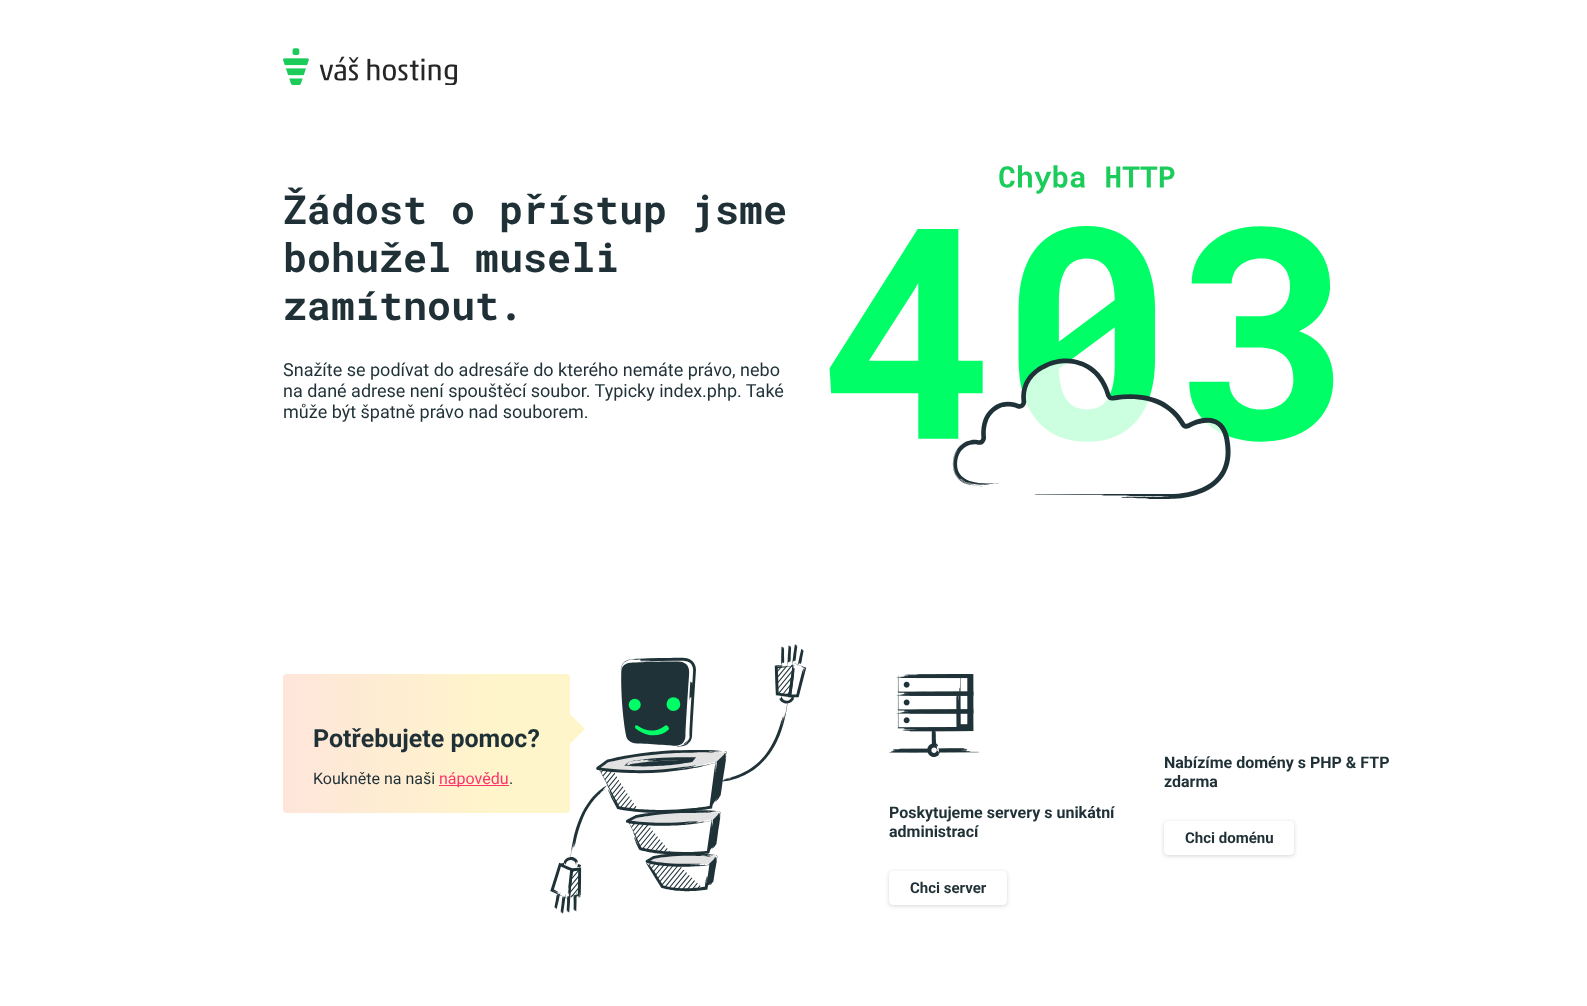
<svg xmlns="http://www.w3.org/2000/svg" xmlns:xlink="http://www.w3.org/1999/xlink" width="1587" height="1006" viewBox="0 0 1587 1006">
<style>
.cls-1{font:bold 40px Roboto Mono;fill:#1f3137}
.cls-2{font:18px Roboto;fill:#1f3137}
.cls-3{font:bold 25px Roboto;fill:#1f3137}
.cls-4{font:16px Roboto;fill:#1f3137}
.cls-5{font:16px Roboto;fill:#ff336c}
.cls-6{font:bold 16px Roboto;fill:#1f3137}
.cls-7{font:bold 15px Roboto;fill:#1f3137}
</style>
<defs>
<linearGradient id="g1" gradientUnits="userSpaceOnUse" x1="283" y1="744" x2="570" y2="744"><stop offset="0" stop-color="#fee5da"/><stop offset="0.75" stop-color="#fff5ca"/></linearGradient>
<clipPath id="clip1"><path d="M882 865H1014V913H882ZM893 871H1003C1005 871 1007 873 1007 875V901C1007 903 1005 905 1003 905H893C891 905 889 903 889 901V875C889 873 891 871 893 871Z" clip-rule="evenodd"/></clipPath>
<clipPath id="clip2"><path d="M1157 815H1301V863H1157ZM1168 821H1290C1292 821 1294 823 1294 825V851C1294 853 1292 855 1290 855H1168C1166 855 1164 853 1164 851V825C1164 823 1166 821 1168 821Z" clip-rule="evenodd"/></clipPath>
</defs>
<rect width="100%" height="100%" fill="#ffffff"/>
<image xlink:href="image0.png" x="283" y="48" width="174" height="37"/>
<image xlink:href="image1.png" x="829" y="165" width="505" height="334"/>
<rect fill="url(#g1)" x="283" y="674" width="287" height="139" rx="4"/>
<image xlink:href="image2.png" x="550" y="644" width="257" height="270"/>
<path fill="#fff5ca" d="M570 744V714L585 729Z"/>
<rect fill="#ff336c" x="439" y="785" width="70" height="1"/>
<image xlink:href="image3.png" x="889" y="674" width="90" height="83"/>
<g clip-path="url(#clip1)">
<rect fill="#000000" fill-opacity="0.16" filter="blur(2px)" x="889" y="872" width="118" height="34" rx="4"/>
</g>
<g clip-path="url(#clip2)">
<rect fill="#000000" fill-opacity="0.16" filter="blur(2px)" x="1164" y="822" width="130" height="34" rx="4"/>
</g>
<text class="cls-1"><tspan x="283" y="224">Žádost o přístup jsme</tspan><tspan x="283" y="272">bohužel museli</tspan><tspan x="283" y="320">zamítnout.</tspan></text>
<text class="cls-2"><tspan x="283" y="376">Snažíte se podívat do adresáře do kterého nemáte právo, nebo</tspan><tspan x="283" y="397">na dané adrese není spouštěcí soubor. Typicky index.php. Také</tspan><tspan x="283" y="418">může být špatně právo nad souborem.</tspan></text>
<text class="cls-3" x="313" y="747">Potřebujete pomoc?</text>
<text class="cls-4" x="313" y="784">Koukněte na naši</text>
<text class="cls-5" x="439" y="784">nápovědu</text>
<text class="cls-4" x="509" y="784">.</text>
<text class="cls-6"><tspan x="889" y="818">Poskytujeme servery s unikátní</tspan><tspan x="889" y="837">administrací</tspan></text>
<text class="cls-7" x="910" y="893">Chci server</text>
<text class="cls-6"><tspan x="1164" y="768">Nabízíme domény s PHP &amp; FTP</tspan><tspan x="1164" y="787">zdarma</tspan></text>
<text class="cls-7" x="1185" y="843">Chci doménu</text>
</svg>
